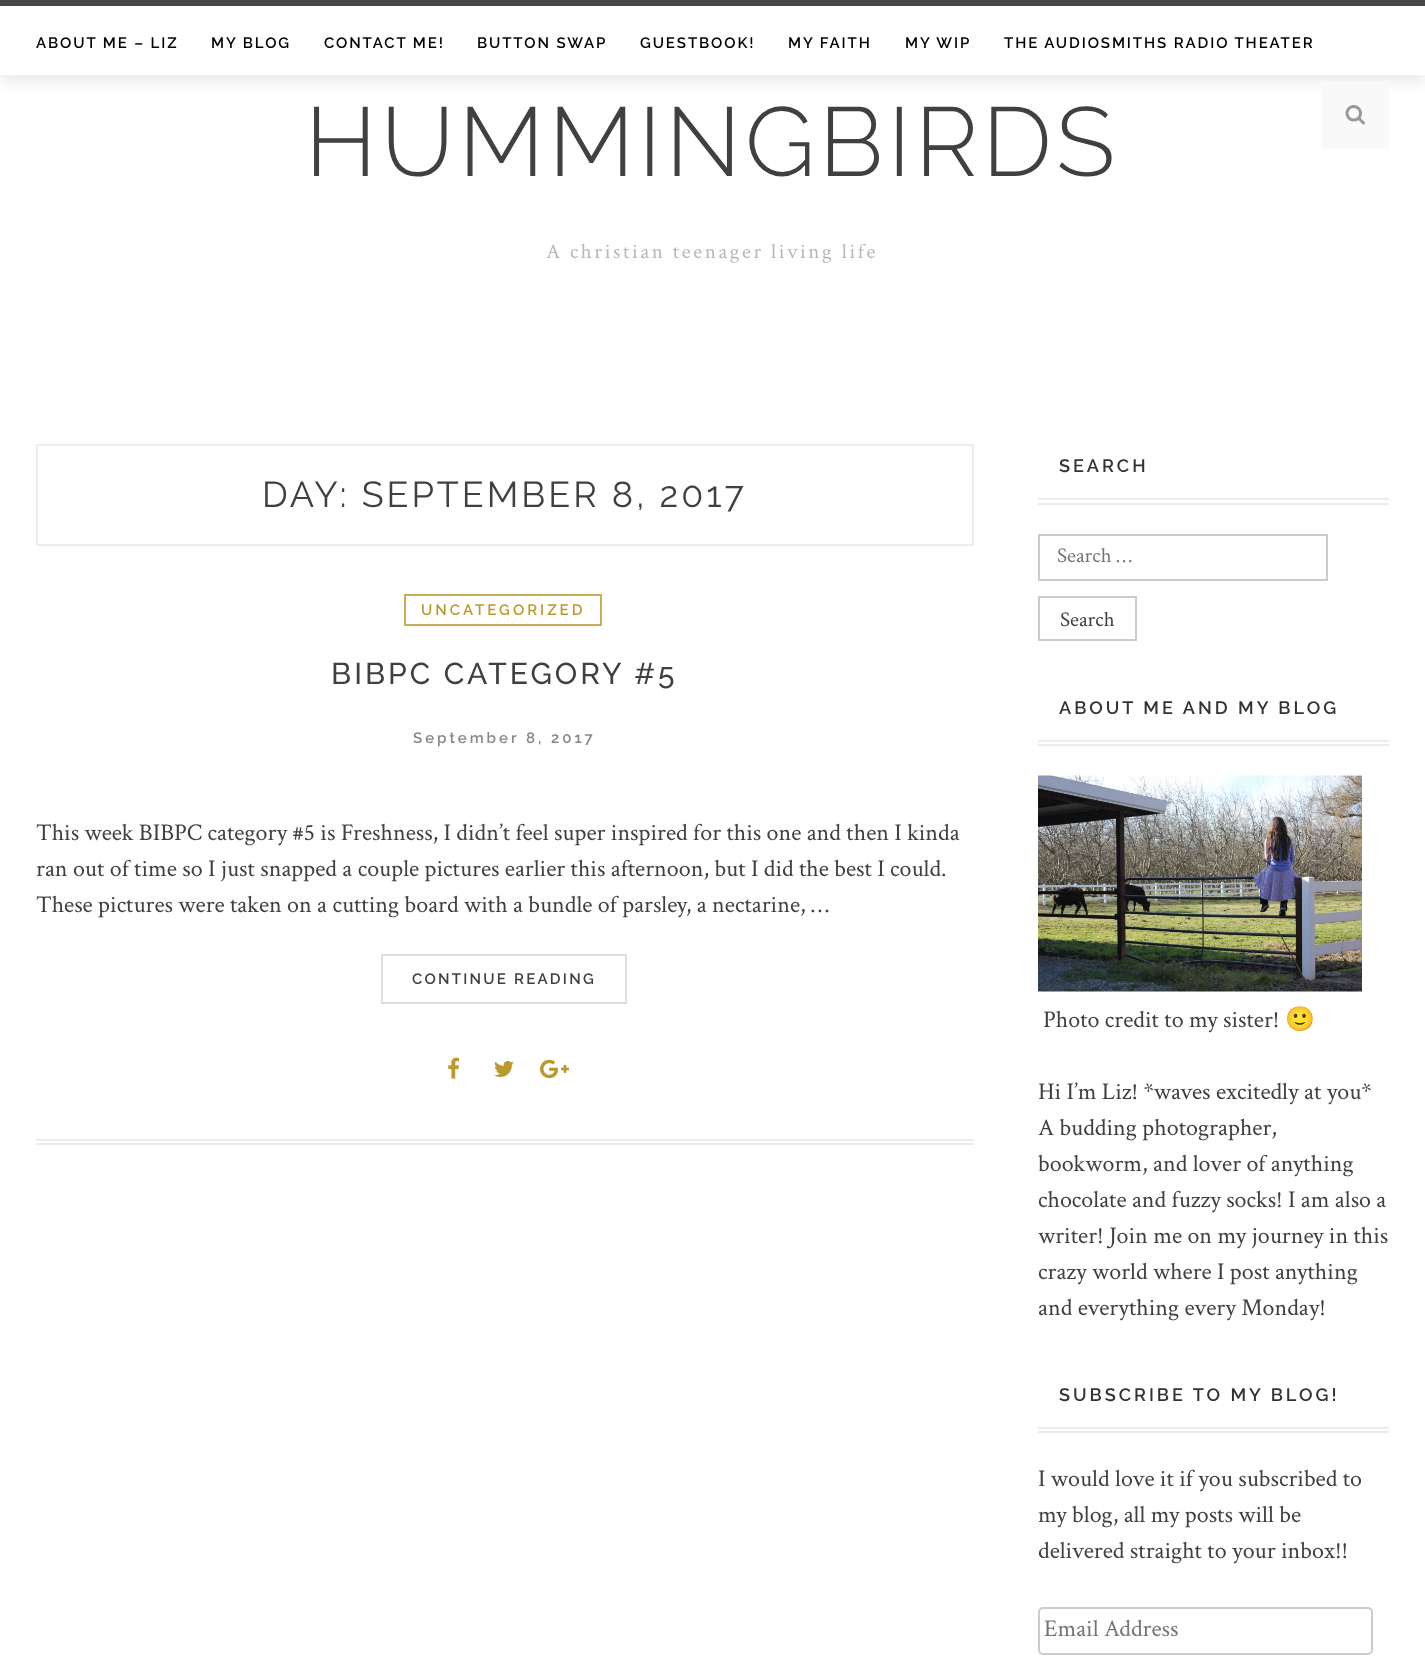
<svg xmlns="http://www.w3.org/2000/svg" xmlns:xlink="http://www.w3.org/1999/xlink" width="1425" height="1657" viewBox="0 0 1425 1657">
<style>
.cls-1{font:600 15px Raleway;letter-spacing:1.9px;fill:#000000}
.cls-2{font:300 97.5px Raleway;letter-spacing:4.1px;fill:#404040}
.cls-3{font:21px Crimson Text;letter-spacing:2.6px;fill:#b7b7b7}
.cls-4{font:36px Raleway;letter-spacing:3px;fill:#404040}
.cls-5{font:600 15px Raleway;letter-spacing:3px;fill:#bb992e}
.cls-6{font:500 30px Raleway;letter-spacing:3px;fill:#404040}
.cls-7{font:600 15px Raleway;letter-spacing:3px;fill:#888888}
.cls-8{font:24px Crimson Text;fill:#404040}
.cls-9{font:600 15px Raleway;letter-spacing:2.25px;fill:#404040}
.cls-10{font:600 18px Raleway;letter-spacing:3px;fill:#333333}
.cls-11{font:21px Crimson Text;fill:#757575}
.cls-12{font:21px Crimson Text;fill:#404040}
.cls-13{font:24px Noto Color Emoji;fill:#404040}
.cls-14{font:24px Crimson Text;fill:#757575}
</style>
<rect width="100%" height="100%" fill="#ffffff"/>
<rect fill="#161616" fill-opacity="0.08" filter="blur(6px)" x="0" y="8" width="1425" height="75"/>
<rect fill="#ffffff" x="0" y="6" width="1425" height="69"/>
<rect fill="#474747" x="0" y="0" width="1425" height="6"/>
<rect fill="#f9f9f9" x="1322" y="81" width="67" height="68"/>
<image xlink:href="image0.png" x="1345" y="105" width="20" height="20"/>
<rect fill="none" stroke="#ededed" stroke-width="2" x="37" y="445" width="936" height="100"/>
<rect fill="#ececec" x="36" y="1139" width="938" height="2"/>
<rect fill="#ececec" x="36" y="1143" width="938" height="2"/>
<rect fill="none" stroke="#caae57" stroke-width="2" x="405" y="595" width="196" height="30"/>
<rect fill="none" stroke="#dedede" stroke-width="2" x="382" y="955" width="244" height="48"/>
<image xlink:href="image1.png" x="448" y="1057" width="12" height="22"/>
<image xlink:href="image2.png" x="494" y="1060" width="20" height="17"/>
<image xlink:href="image3.png" x="540" y="1059" width="29" height="20"/>
<rect fill="#ececec" x="1038" y="498" width="351" height="2"/>
<rect fill="#ececec" x="1038" y="503" width="351" height="2"/>
<rect fill="none" stroke="#cccccc" stroke-width="2" x="1039" y="535" width="288" height="45"/>
<rect fill="none" stroke="#cccccc" stroke-width="2" x="1039" y="597" width="97" height="43"/>
<rect fill="#ececec" x="1038" y="740" width="351" height="2"/>
<rect fill="#ececec" x="1038" y="744" width="351" height="2"/>
<image xlink:href="image4.png" x="1038" y="775" width="324" height="217"/>
<rect fill="#ececec" x="1038" y="1427" width="351" height="2"/>
<rect fill="#ececec" x="1038" y="1431" width="351" height="2"/>
<rect fill="none" stroke="#cccccc" stroke-width="2" x="1039" y="1608" width="333" height="46" rx="4"/>
<text class="cls-1" x="36" y="48">ABOUT ME – LIZ</text>
<text class="cls-1" x="211" y="48">MY BLOG</text>
<text class="cls-1" x="324" y="48">CONTACT ME!</text>
<text class="cls-1" x="477" y="48">BUTTON SWAP</text>
<text class="cls-1" x="640" y="48">GUESTBOOK!</text>
<text class="cls-1" x="788" y="48">MY FAITH</text>
<text class="cls-1" x="905" y="48">MY WIP</text>
<text class="cls-1" x="1004" y="48">THE AUDIOSMITHS RADIO THEATER</text>
<text class="cls-2" x="305" y="176">HUMMINGBIRDS</text>
<text class="cls-3" x="546" y="258">A christian teenager living life</text>
<text class="cls-4" x="262" y="507">DAY: SEPTEMBER 8, 2017</text>
<text class="cls-5" x="421" y="615">UNCATEGORIZED</text>
<text class="cls-6" x="331" y="684">BIBPC CATEGORY #5</text>
<text class="cls-7" x="413" y="743">September 8, 2017</text>
<text class="cls-8"><tspan x="36" y="840">This week BIBPC category #5 is Freshness, I didn’t feel super inspired for this one and then I kinda</tspan><tspan x="36" y="876">ran out of time so I just snapped a couple pictures earlier this afternoon, but I did the best I could.</tspan><tspan x="36" y="912">These pictures were taken on a cutting board with a bundle of parsley, a nectarine, …</tspan></text>
<text class="cls-9" x="412" y="984">CONTINUE READING</text>
<text class="cls-10" x="1059" y="472">SEARCH</text>
<text class="cls-11" x="1057" y="562">Search …</text>
<text class="cls-12" x="1060" y="626">Search</text>
<text class="cls-10" x="1059" y="714">ABOUT ME AND MY BLOG</text>
<text class="cls-8" x="1043" y="1027">Photo credit to my sister!</text>
<text class="cls-13" x="1285" y="1027">🙂</text>
<text class="cls-8"><tspan x="1038" y="1099">Hi I’m Liz! *waves excitedly at you*</tspan><tspan x="1038" y="1135">A budding photographer,</tspan><tspan x="1038" y="1171">bookworm, and lover of anything</tspan><tspan x="1038" y="1207">chocolate and fuzzy socks! I am also a</tspan><tspan x="1038" y="1243">writer! Join me on my journey in this</tspan><tspan x="1038" y="1279">crazy world where I post anything</tspan><tspan x="1038" y="1315">and everything every Monday!</tspan></text>
<text class="cls-10" x="1059" y="1401">SUBSCRIBE TO MY BLOG!</text>
<text class="cls-8"><tspan x="1038" y="1486">I would love it if you subscribed to</tspan><tspan x="1038" y="1522">my blog, all my posts will be</tspan><tspan x="1038" y="1558">delivered straight to your inbox!!</tspan></text>
<text class="cls-14" x="1044" y="1636">Email Address</text>
</svg>
